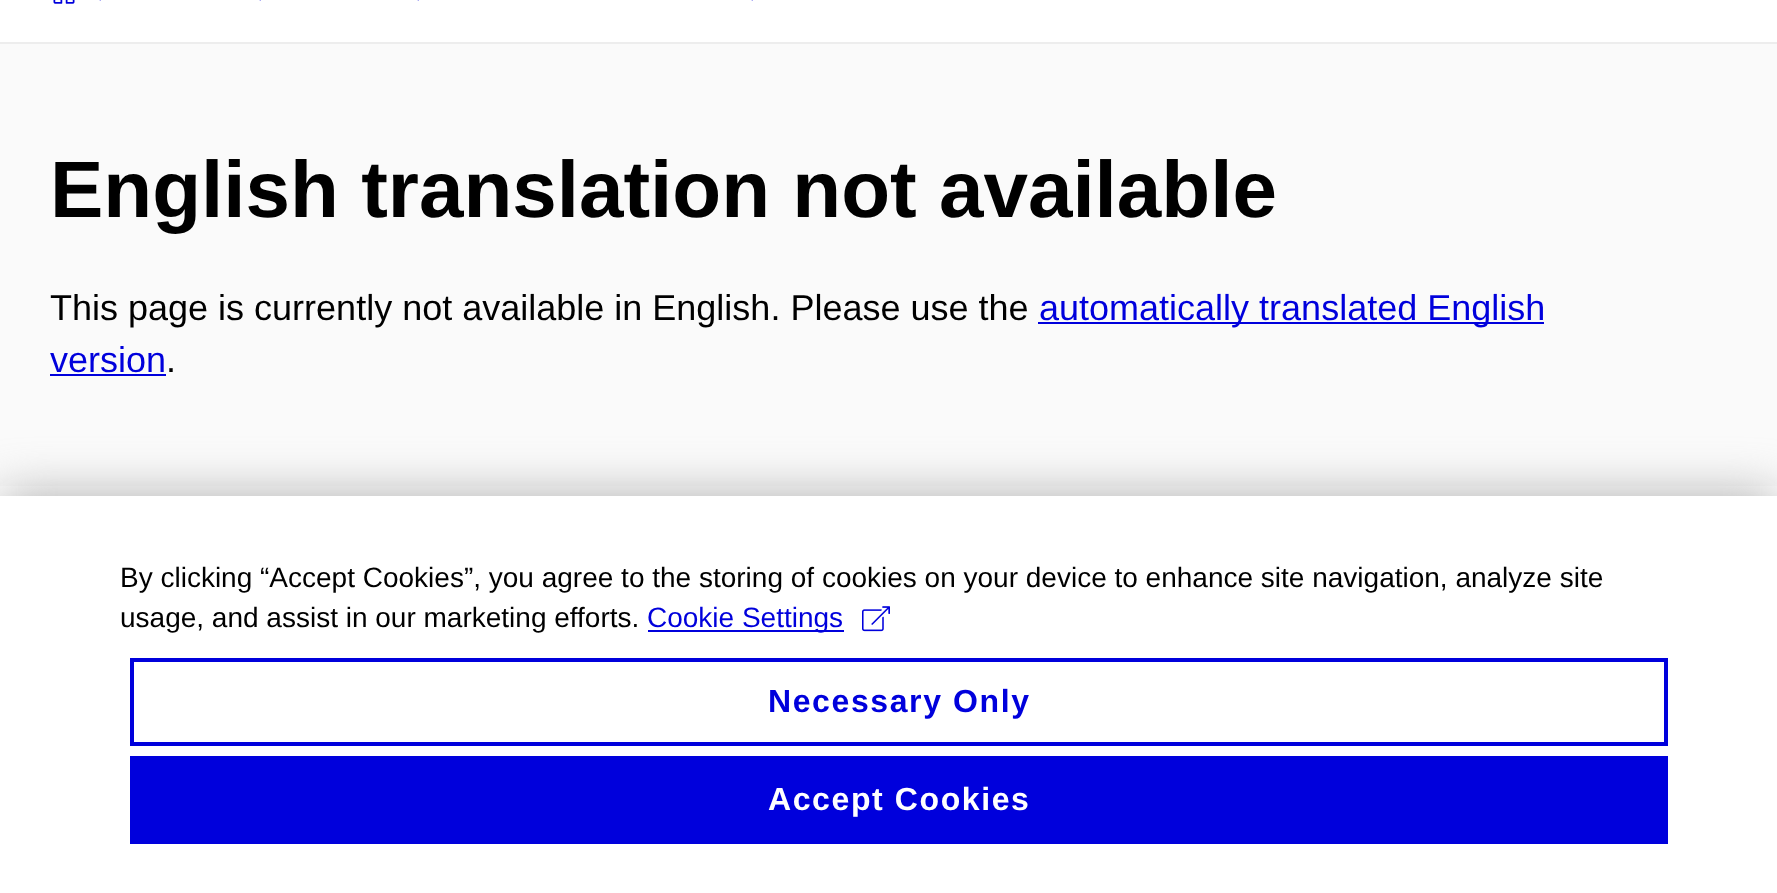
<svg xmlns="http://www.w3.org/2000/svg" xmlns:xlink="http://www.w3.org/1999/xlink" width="1777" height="893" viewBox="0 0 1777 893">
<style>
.cls-1{font:bold 80px Liberation Sans;fill:#000000}
.cls-2{font:36px Liberation Sans;fill:#000000}
.cls-3{font:36px Liberation Sans;fill:#0000dc}
.cls-4{font:28px Liberation Sans;fill:#000000}
.cls-5{font:28px Liberation Sans;fill:#0000dc}
.cls-6{font:bold 32px Liberation Sans;letter-spacing:1.6px;fill:#0000dc}
.cls-7{font:bold 32px Liberation Sans;letter-spacing:1.6px;fill:#ffffff}
</style>
<rect width="100%" height="100%" fill="#fafafa"/>
<rect fill="#ffffff" x="0" y="0" width="1777" height="42"/>
<rect fill="#ededed" x="0" y="42" width="1777" height="2"/>
<image xlink:href="image0.png" x="53" y="0" width="22" height="4"/>
<image xlink:href="image1.png" x="99" y="0" width="2" height="1"/>
<image xlink:href="image1.png" x="259" y="0" width="2" height="1"/>
<image xlink:href="image1.png" x="417" y="0" width="2" height="1"/>
<image xlink:href="image1.png" x="751" y="0" width="2" height="1"/>
<rect fill="#0000dc" x="1038" y="322" width="506" height="2"/>
<rect fill="#0000dc" x="50" y="374" width="116" height="2"/>
<rect fill="#ffffff" x="0" y="486" width="1777" height="10"/>
<rect fill="#aaaaaa" filter="blur(25px)" x="0" y="496" width="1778" height="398"/>
<rect fill="#ffffff" x="0" y="496" width="1777" height="397"/>
<rect fill="#0000dc" x="648" y="630" width="196" height="2"/>
<image xlink:href="image2.png" x="862" y="606" width="28" height="26"/>
<rect fill="none" stroke="#0000dc" stroke-width="4" x="132" y="660" width="1534" height="84"/>
<rect fill="#0000dc" x="130" y="756" width="1538" height="88"/>
<text class="cls-1" x="50" y="217">English translation not available</text>
<text class="cls-2" x="50" y="320">This page is currently not available in English. Please use the</text>
<text class="cls-3" x="1039" y="320">automatically translated English</text>
<text class="cls-3" x="50" y="372">version</text>
<text class="cls-2" x="166" y="372">.</text>
<text class="cls-4"><tspan x="120" y="587">By clicking “Accept Cookies”, you agree to the storing of cookies on your device to enhance site navigation, analyze site</tspan><tspan x="120" y="627">usage, and assist in our marketing efforts.</tspan></text>
<text class="cls-5" x="647" y="627">Cookie Settings</text>
<text class="cls-6" x="768" y="712">Necessary Only</text>
<text class="cls-7" x="768" y="810">Accept Cookies</text>
</svg>
